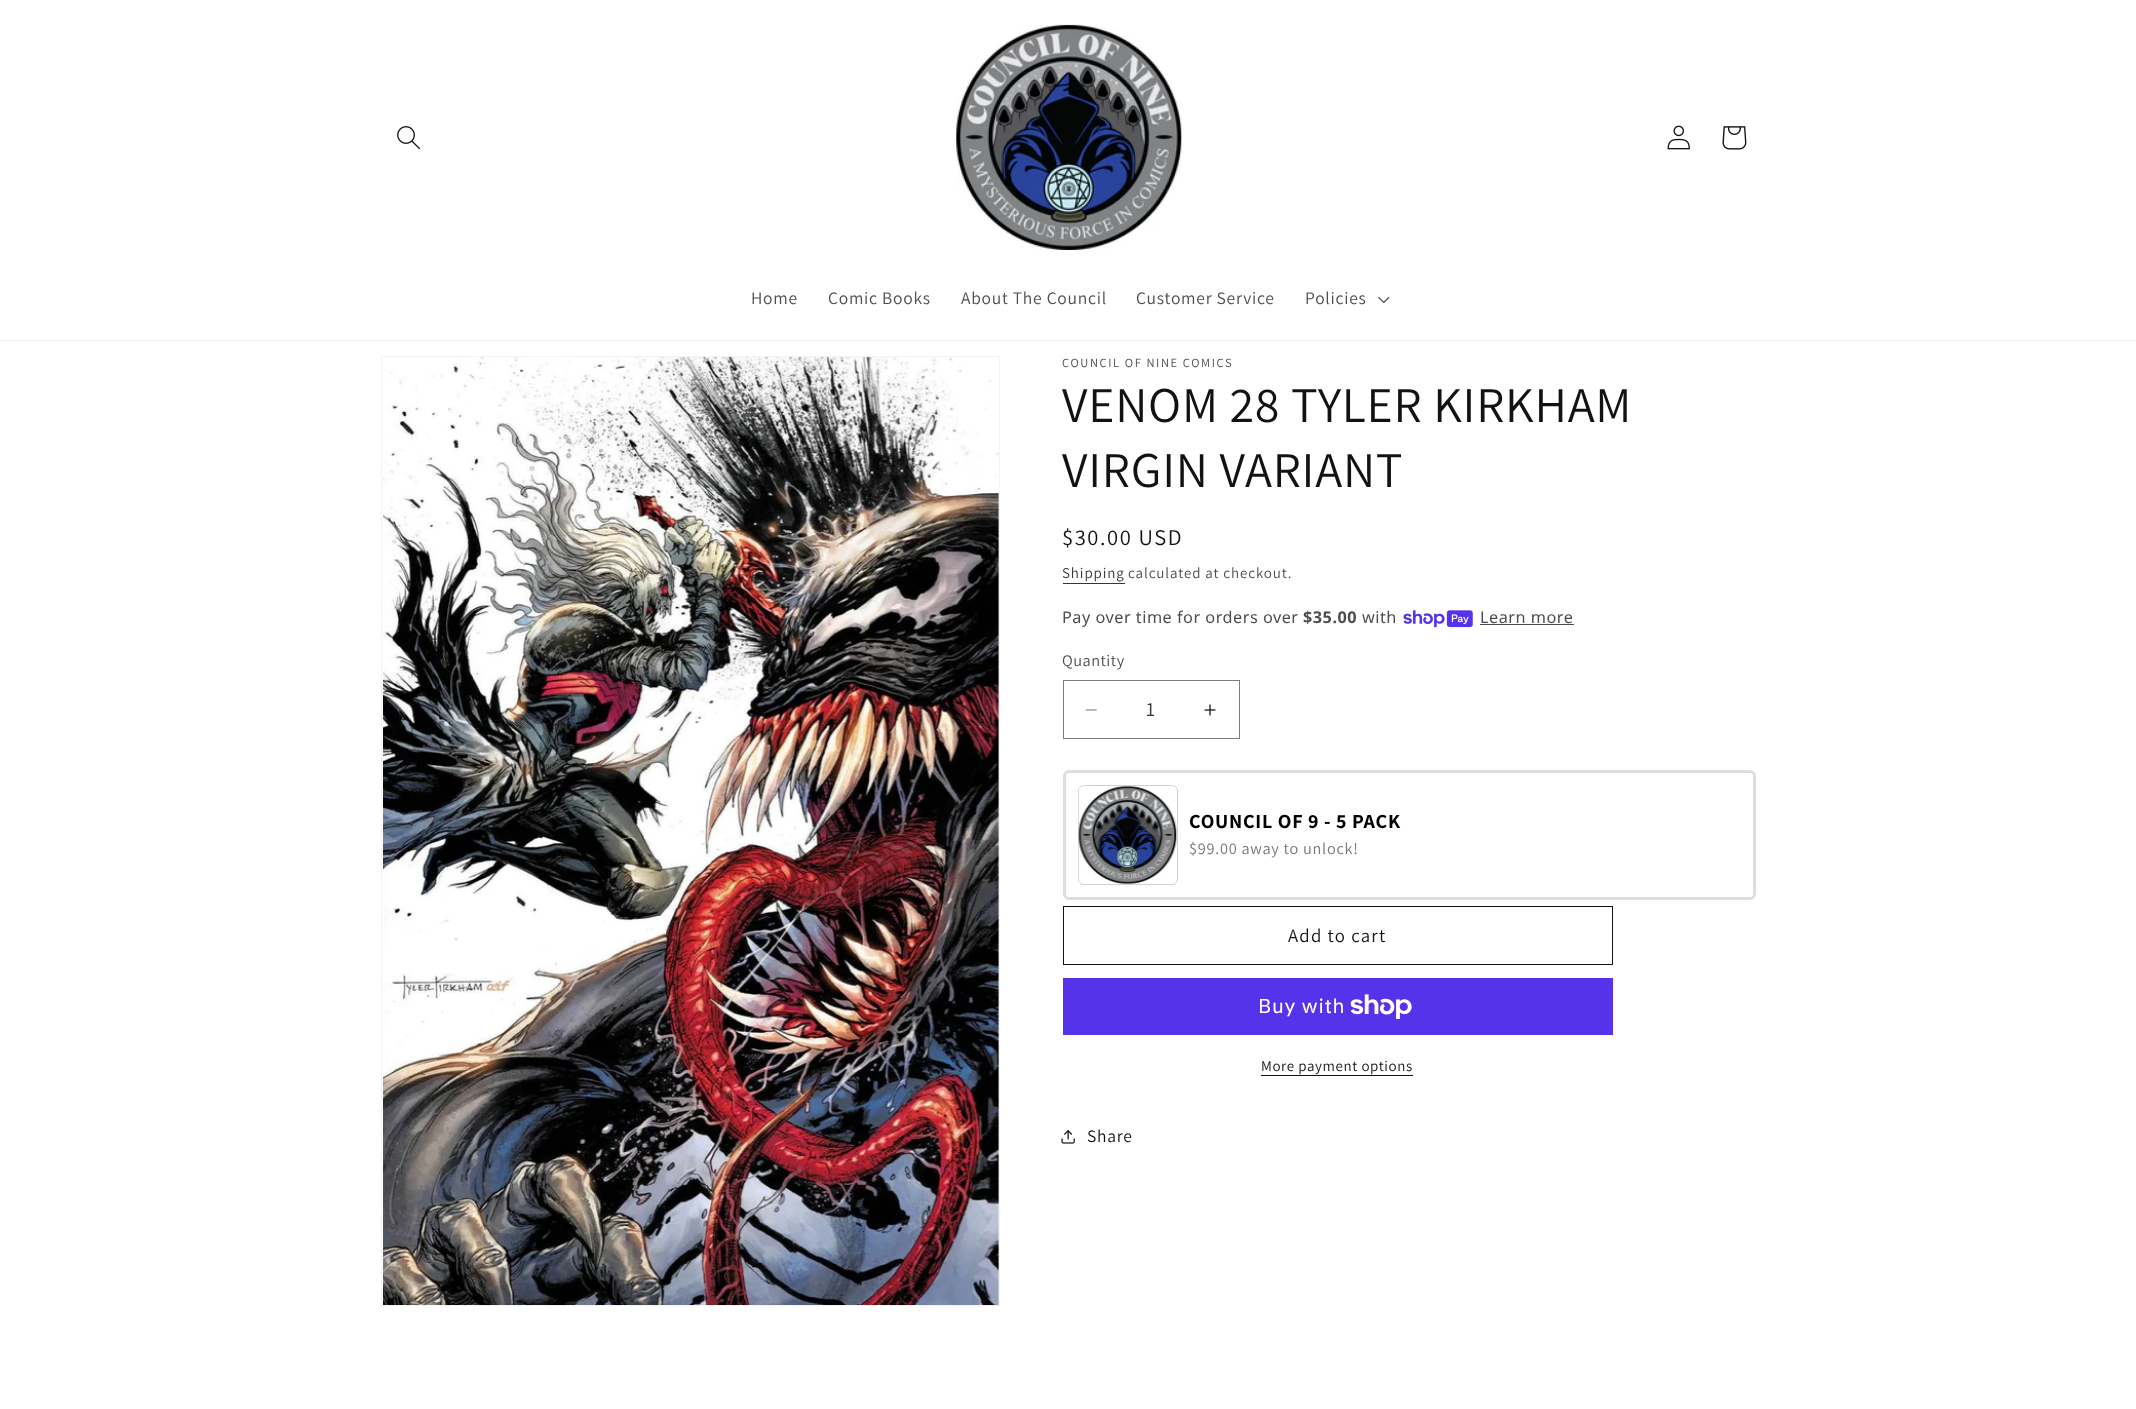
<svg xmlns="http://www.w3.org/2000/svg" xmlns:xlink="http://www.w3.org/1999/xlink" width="2136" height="1409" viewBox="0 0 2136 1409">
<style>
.cls-1{font:17.5px Assistant;letter-spacing:0.75px;fill:#4d4d4d}
.cls-2{font:12.5px Assistant;letter-spacing:1.6px;fill:#4d4d4d}
.cls-3{font:50px Assistant;letter-spacing:0.75px;fill:#121212}
.cls-4{font:22.5px Assistant;letter-spacing:1.6px;fill:#121212}
.cls-5{font:15px Assistant;letter-spacing:0.9px;fill:#363636}
.cls-6{font:15px Assistant;letter-spacing:0.9px;fill:#4d4d4d}
.cls-7{font:16.25px Noto Sans;letter-spacing:0.5px;fill:#4d4d4d}
.cls-8{font:bold 16.25px Noto Sans;letter-spacing:0.5px;fill:#4d4d4d}
.cls-9{font:16.25px Assistant;letter-spacing:0.5px;fill:#4d4d4d}
.cls-10{font:20px Assistant;fill:#363636}
.cls-11{font:bold 20px Assistant;letter-spacing:0.75px;fill:#000000}
.cls-12{font:16.25px Assistant;letter-spacing:0.75px;fill:#777575}
.cls-13{font:18.75px Assistant;letter-spacing:1.25px;fill:#121212}
.cls-14{font:20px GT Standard;letter-spacing:0.75px;fill:#ffffff}
.cls-15{font:15px Assistant;letter-spacing:0.6px;fill:#121212}
.cls-16{font:17.5px Assistant;letter-spacing:0.75px;fill:#121212}
</style>
<rect width="100%" height="100%" fill="#ffffff"/>
<rect fill="#ececec" x="0" y="340" width="2136" height="1"/>
<image xlink:href="image0.png" x="397" y="126" width="23" height="24"/>
<image xlink:href="image1.png" x="956" y="24" width="226" height="226"/>
<image xlink:href="image2.png" x="1667" y="125" width="23" height="25"/>
<image xlink:href="image3.png" x="1722" y="126" width="25" height="24"/>
<image xlink:href="image4.png" x="1378" y="296" width="12" height="8"/>
<rect fill="none" stroke="#f3f3f3" x="381.5" y="356.5" width="618" height="949"/>
<image xlink:href="image5.png" x="383" y="357" width="616" height="948"/>
<rect fill="#363636" x="1063" y="583" width="62" height="1"/>
<image xlink:href="image6.png" x="1403" y="610" width="70" height="18"/>
<rect fill="#4d4d4d" x="1480" y="624" width="94" height="1"/>
<image xlink:href="image7.png" x="1085" y="709" width="12" height="2"/>
<image xlink:href="image8.png" x="1204" y="704" width="12" height="12"/>
<rect fill="none" stroke="#7d7d7d" x="1063.5" y="680.5" width="176" height="58"/>
<rect fill="none" stroke="#dedede" stroke-width="3" x="1064.5" y="771.5" width="690" height="127" rx="4.5"/>
<rect fill="none" stroke="#d1d1d1" x="1078.5" y="785.5" width="99" height="99" rx="5.5"/>
<image xlink:href="image9.png" x="1078" y="786" width="99" height="98"/>
<rect fill="none" stroke="#121212" x="1063.5" y="906.5" width="549" height="58"/>
<rect fill="#5433eb" x="1063" y="978" width="550" height="57"/>
<image xlink:href="image10.png" x="1350" y="994" width="62" height="25"/>
<rect fill="#121212" x="1261" y="1075" width="152" height="1"/>
<image xlink:href="image11.png" x="1061" y="1130" width="14" height="14"/>
<text class="cls-1" x="751" y="304">Home</text>
<text class="cls-1" x="828" y="304">Comic Books</text>
<text class="cls-1" x="961" y="304">About The Council</text>
<text class="cls-1" x="1136" y="304">Customer Service</text>
<text class="cls-1" x="1305" y="304">Policies</text>
<text class="cls-2" x="1062" y="367">COUNCIL OF NINE COMICS</text>
<text class="cls-3"><tspan x="1062" y="422">VENOM 28 TYLER KIRKHAM</tspan><tspan x="1062" y="487">VIRGIN VARIANT</tspan></text>
<text class="cls-4" x="1062" y="545">$30.00 USD</text>
<text class="cls-5" x="1062" y="578">Shipping</text>
<text class="cls-6" x="1128" y="578">calculated at checkout.</text>
<text class="cls-7" x="1062" y="623">Pay over time for orders over</text>
<text class="cls-8" x="1303" y="623">$35.00</text>
<text class="cls-7" x="1362" y="623">with</text>
<text class="cls-7" x="1480" y="623">Learn more</text>
<text class="cls-9" x="1062" y="666">Quantity</text>
<text class="cls-10" x="1146" y="716">1</text>
<text class="cls-11" x="1189" y="828">COUNCIL OF 9 - 5 PACK</text>
<text class="cls-12" x="1189" y="854">$99.00 away to unlock!</text>
<text class="cls-13" x="1288" y="942">Add to cart</text>
<text class="cls-14" x="1258" y="1013">Buy with</text>
<text class="cls-15" x="1261" y="1071">More payment options</text>
<text class="cls-16" x="1087" y="1142">Share</text>
</svg>
